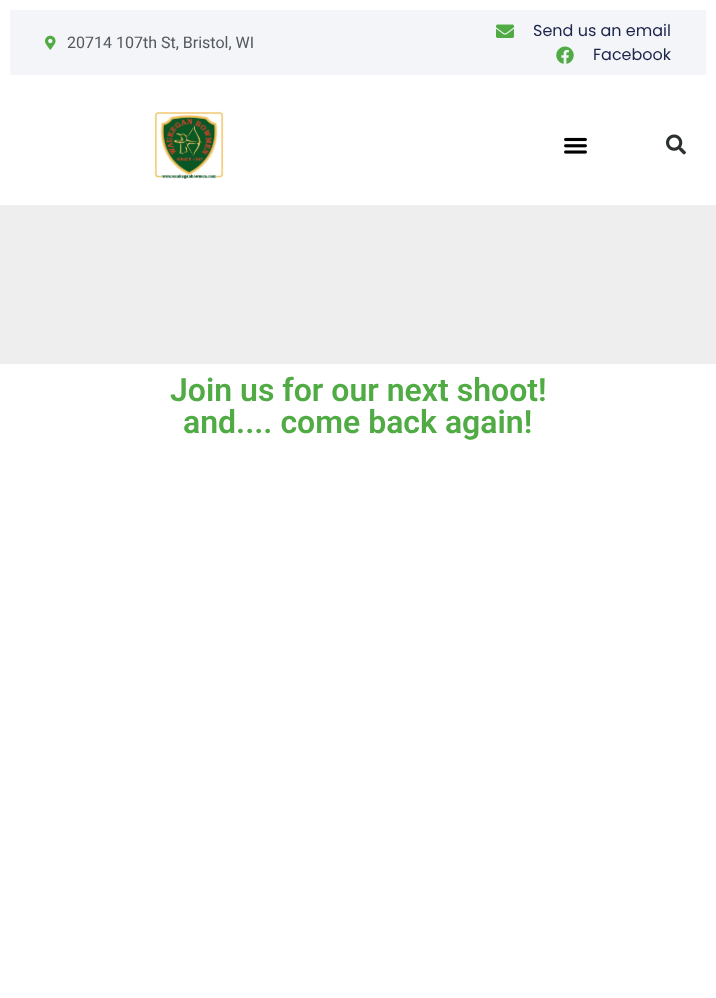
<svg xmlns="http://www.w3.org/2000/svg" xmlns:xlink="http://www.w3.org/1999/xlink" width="716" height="998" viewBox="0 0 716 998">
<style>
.cls-1{font:16px Roboto;fill:#54595f}
.cls-2{font:16px Poppins;fill:#1c244b}
.cls-3{font:600 32px Roboto;fill:#50ab44}
</style>
<rect width="100%" height="100%" fill="#ffffff"/>
<rect fill="#f3f5f8" x="10" y="10" width="696" height="65"/>
<image xlink:href="image0.png" x="45" y="35" width="11" height="15"/>
<image xlink:href="image1.png" x="496" y="24" width="18" height="14"/>
<image xlink:href="image2.png" x="556" y="46" width="18" height="18"/>
<image xlink:href="image3.png" x="154" y="111" width="70" height="68"/>
<image xlink:href="image4.png" x="564" y="137" width="23" height="17"/>
<image xlink:href="image5.png" x="666" y="134" width="20" height="21"/>
<rect fill="#eeeeee" x="0" y="205" width="716" height="159"/>
<text class="cls-1" x="67" y="48">20714 107th St, Bristol, WI</text>
<text class="cls-2" x="533" y="36">Send us an email</text>
<text class="cls-2" x="593" y="60">Facebook</text>
<text class="cls-3" x="170" y="401">Join us for our next shoot!</text>
<text class="cls-3" x="183" y="433">and.... come back again!</text>
</svg>
